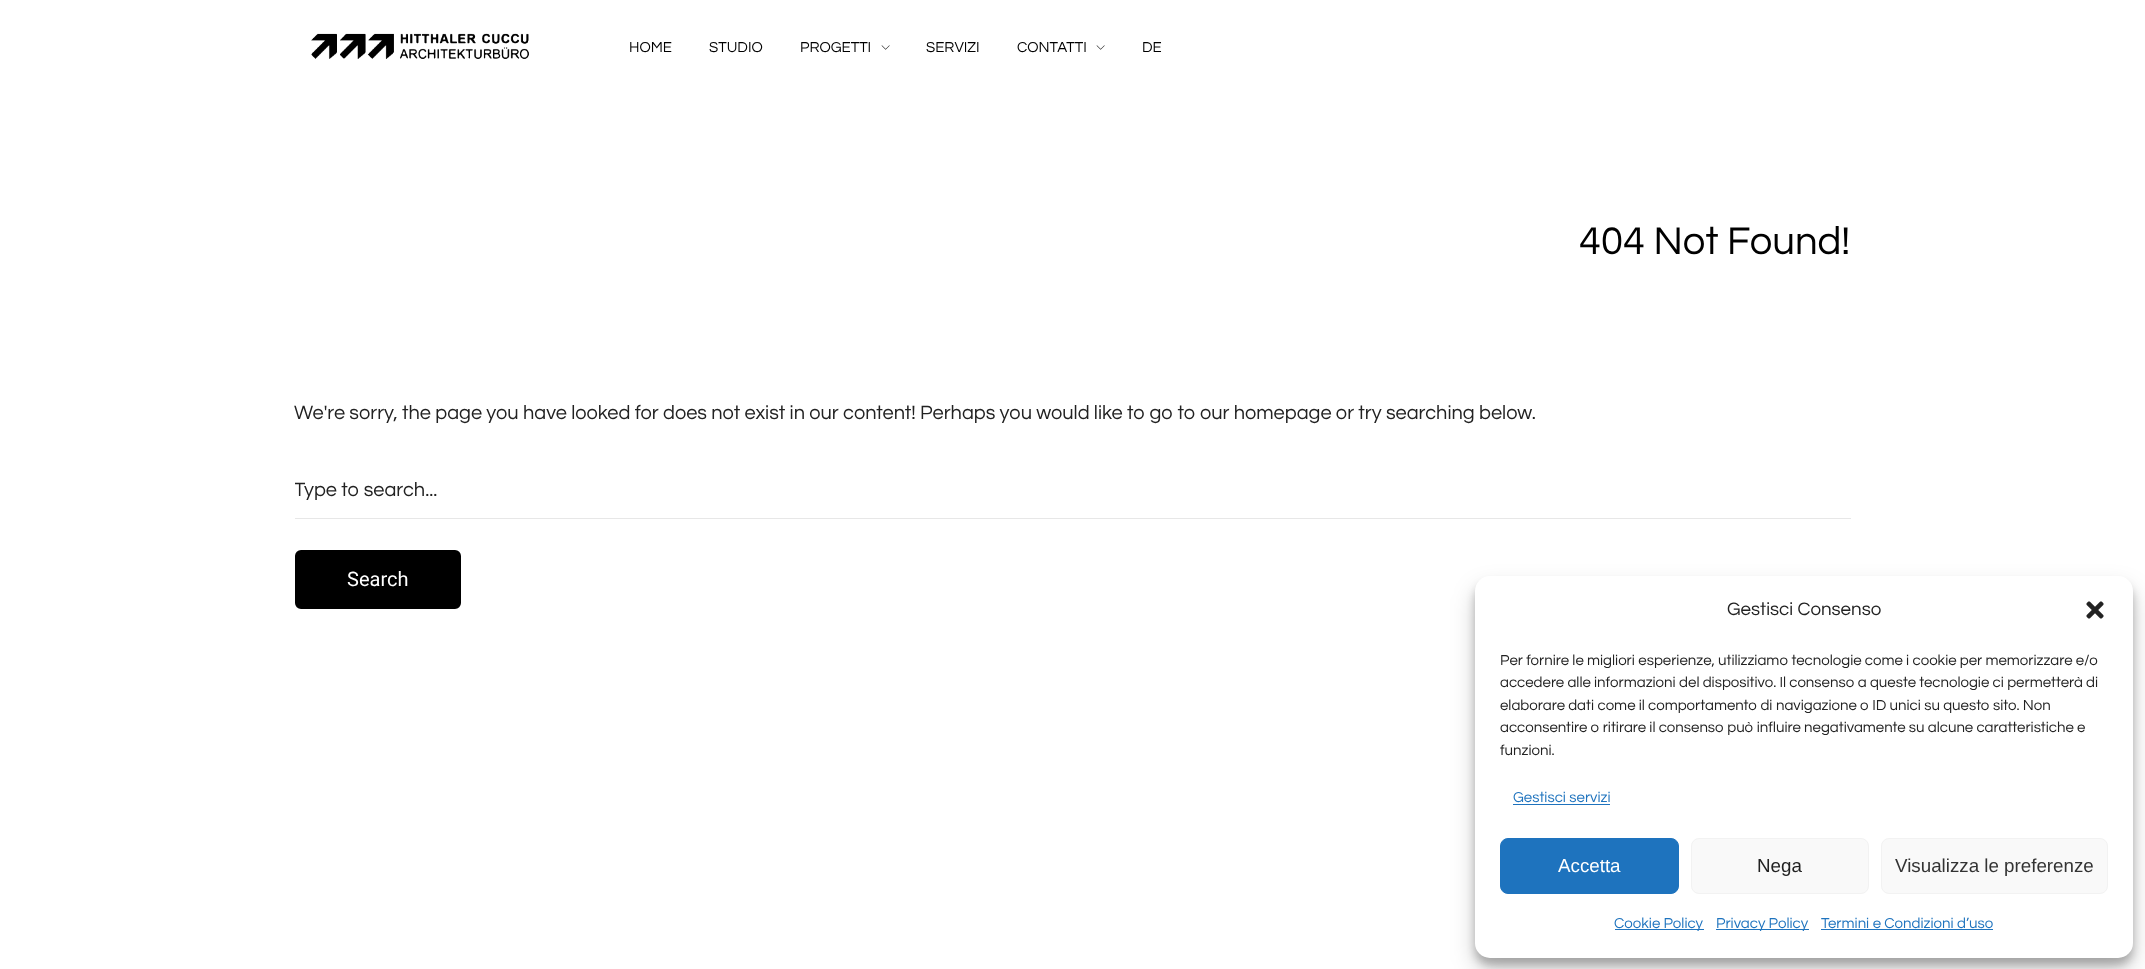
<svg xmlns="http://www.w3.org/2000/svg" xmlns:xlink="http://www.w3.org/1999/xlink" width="2145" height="969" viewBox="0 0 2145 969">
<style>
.cls-1{font:15px Questrial;fill:#000000}
.cls-2{font:40px Questrial;fill:#000000}
.cls-3{font:20px Questrial;fill:#222222}
.cls-4{font:20px Heebo;fill:#ffffff}
.cls-5{font:18.75px Questrial;fill:#222222}
.cls-6{font:15px Questrial;fill:#222222}
.cls-7{font:15px Questrial;fill:#1e73be}
.cls-8{font:18.75px Liberation Sans;fill:#ffffff}
.cls-9{font:18.75px Liberation Sans;fill:#222222}
.cls-10{font:18.75px Liberation Sans;fill:#333333}
</style>
<defs>
<clipPath id="clip1"><rect x="295" y="480" width="1556" height="20"/></clipPath>
</defs>
<rect width="100%" height="100%" fill="#ffffff"/>
<image xlink:href="image0.png" x="311" y="33" width="218" height="26"/>
<image xlink:href="image1.png" x="881" y="45" width="9" height="5"/>
<image xlink:href="image1.png" x="1096" y="45" width="9" height="5"/>
<rect fill="#e7e7e7" x="295" y="518" width="1556" height="1"/>
<rect fill="#000000" stroke="#000000" stroke-width="3" x="296.5" y="551.5" width="163" height="56" rx="4.5"/>
<rect fill="#000000" fill-opacity="0.23" filter="blur(4px)" x="1475" y="584" width="658" height="381" rx="15"/>
<rect fill="#000000" fill-opacity="0.19" filter="blur(12.5px)" x="1475" y="589" width="658" height="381" rx="15"/>
<rect fill="#ffffff" x="1475" y="576" width="658" height="382" rx="15"/>
<image xlink:href="image2.png" x="2086" y="601" width="18" height="18"/>
<rect fill="#1e73be" x="1513" y="804" width="97" height="1"/>
<rect fill="#1e73be" stroke="#1e73be" x="1500.5" y="838.5" width="178" height="55" rx="7.5"/>
<rect fill="#f9f9f9" stroke="#f2f2f2" x="1691.5" y="838.5" width="177" height="55" rx="7.5"/>
<rect fill="#f9f9f9" stroke="#f2f2f2" x="1881.5" y="838.5" width="226" height="55" rx="7.5"/>
<rect fill="#1e73be" x="1615" y="929" width="89" height="1"/>
<rect fill="#1e73be" x="1716" y="929" width="93" height="1"/>
<rect fill="#1e73be" x="1821" y="929" width="172" height="1"/>
<text class="cls-1" x="629" y="52">HOME</text>
<text class="cls-1" x="709" y="52">STUDIO</text>
<text class="cls-1" x="800" y="52">PROGETTI</text>
<text class="cls-1" x="926" y="52">SERVIZI</text>
<text class="cls-1" x="1017" y="52">CONTATTI</text>
<text class="cls-1" x="1142" y="52">DE</text>
<text class="cls-2" x="1579" y="254">404 Not Found!</text>
<text class="cls-3" x="294" y="419">We're sorry, the page you have looked for does not exist in our content! Perhaps you would like to go to our homepage or try searching below.</text>
<g clip-path="url(#clip1)">
<text class="cls-3" x="294" y="496">Type to search...</text>
</g>
<text class="cls-4" x="347" y="586">Search</text>
<text class="cls-5" x="1727" y="615">Gestisci Consenso</text>
<text class="cls-6"><tspan x="1500" y="665">Per fornire le migliori esperienze, utilizziamo tecnologie come i cookie per memorizzare e/o</tspan><tspan x="1500" y="687">accedere alle informazioni del dispositivo. Il consenso a queste tecnologie ci permetterà di</tspan><tspan x="1500" y="710">elaborare dati come il comportamento di navigazione o ID unici su questo sito. Non</tspan><tspan x="1500" y="732">acconsentire o ritirare il consenso può influire negativamente su alcune caratteristiche e</tspan><tspan x="1500" y="755">funzioni.</tspan></text>
<text class="cls-7" x="1513" y="802">Gestisci servizi</text>
<text class="cls-8" x="1558" y="872">Accetta</text>
<text class="cls-9" x="1757" y="872">Nega</text>
<text class="cls-10" x="1895" y="872">Visualizza le preferenze</text>
<text class="cls-7" x="1614" y="928">Cookie Policy</text>
<text class="cls-7" x="1716" y="928">Privacy Policy</text>
<text class="cls-7" x="1821" y="928">Termini e Condizioni d’uso</text>
</svg>
